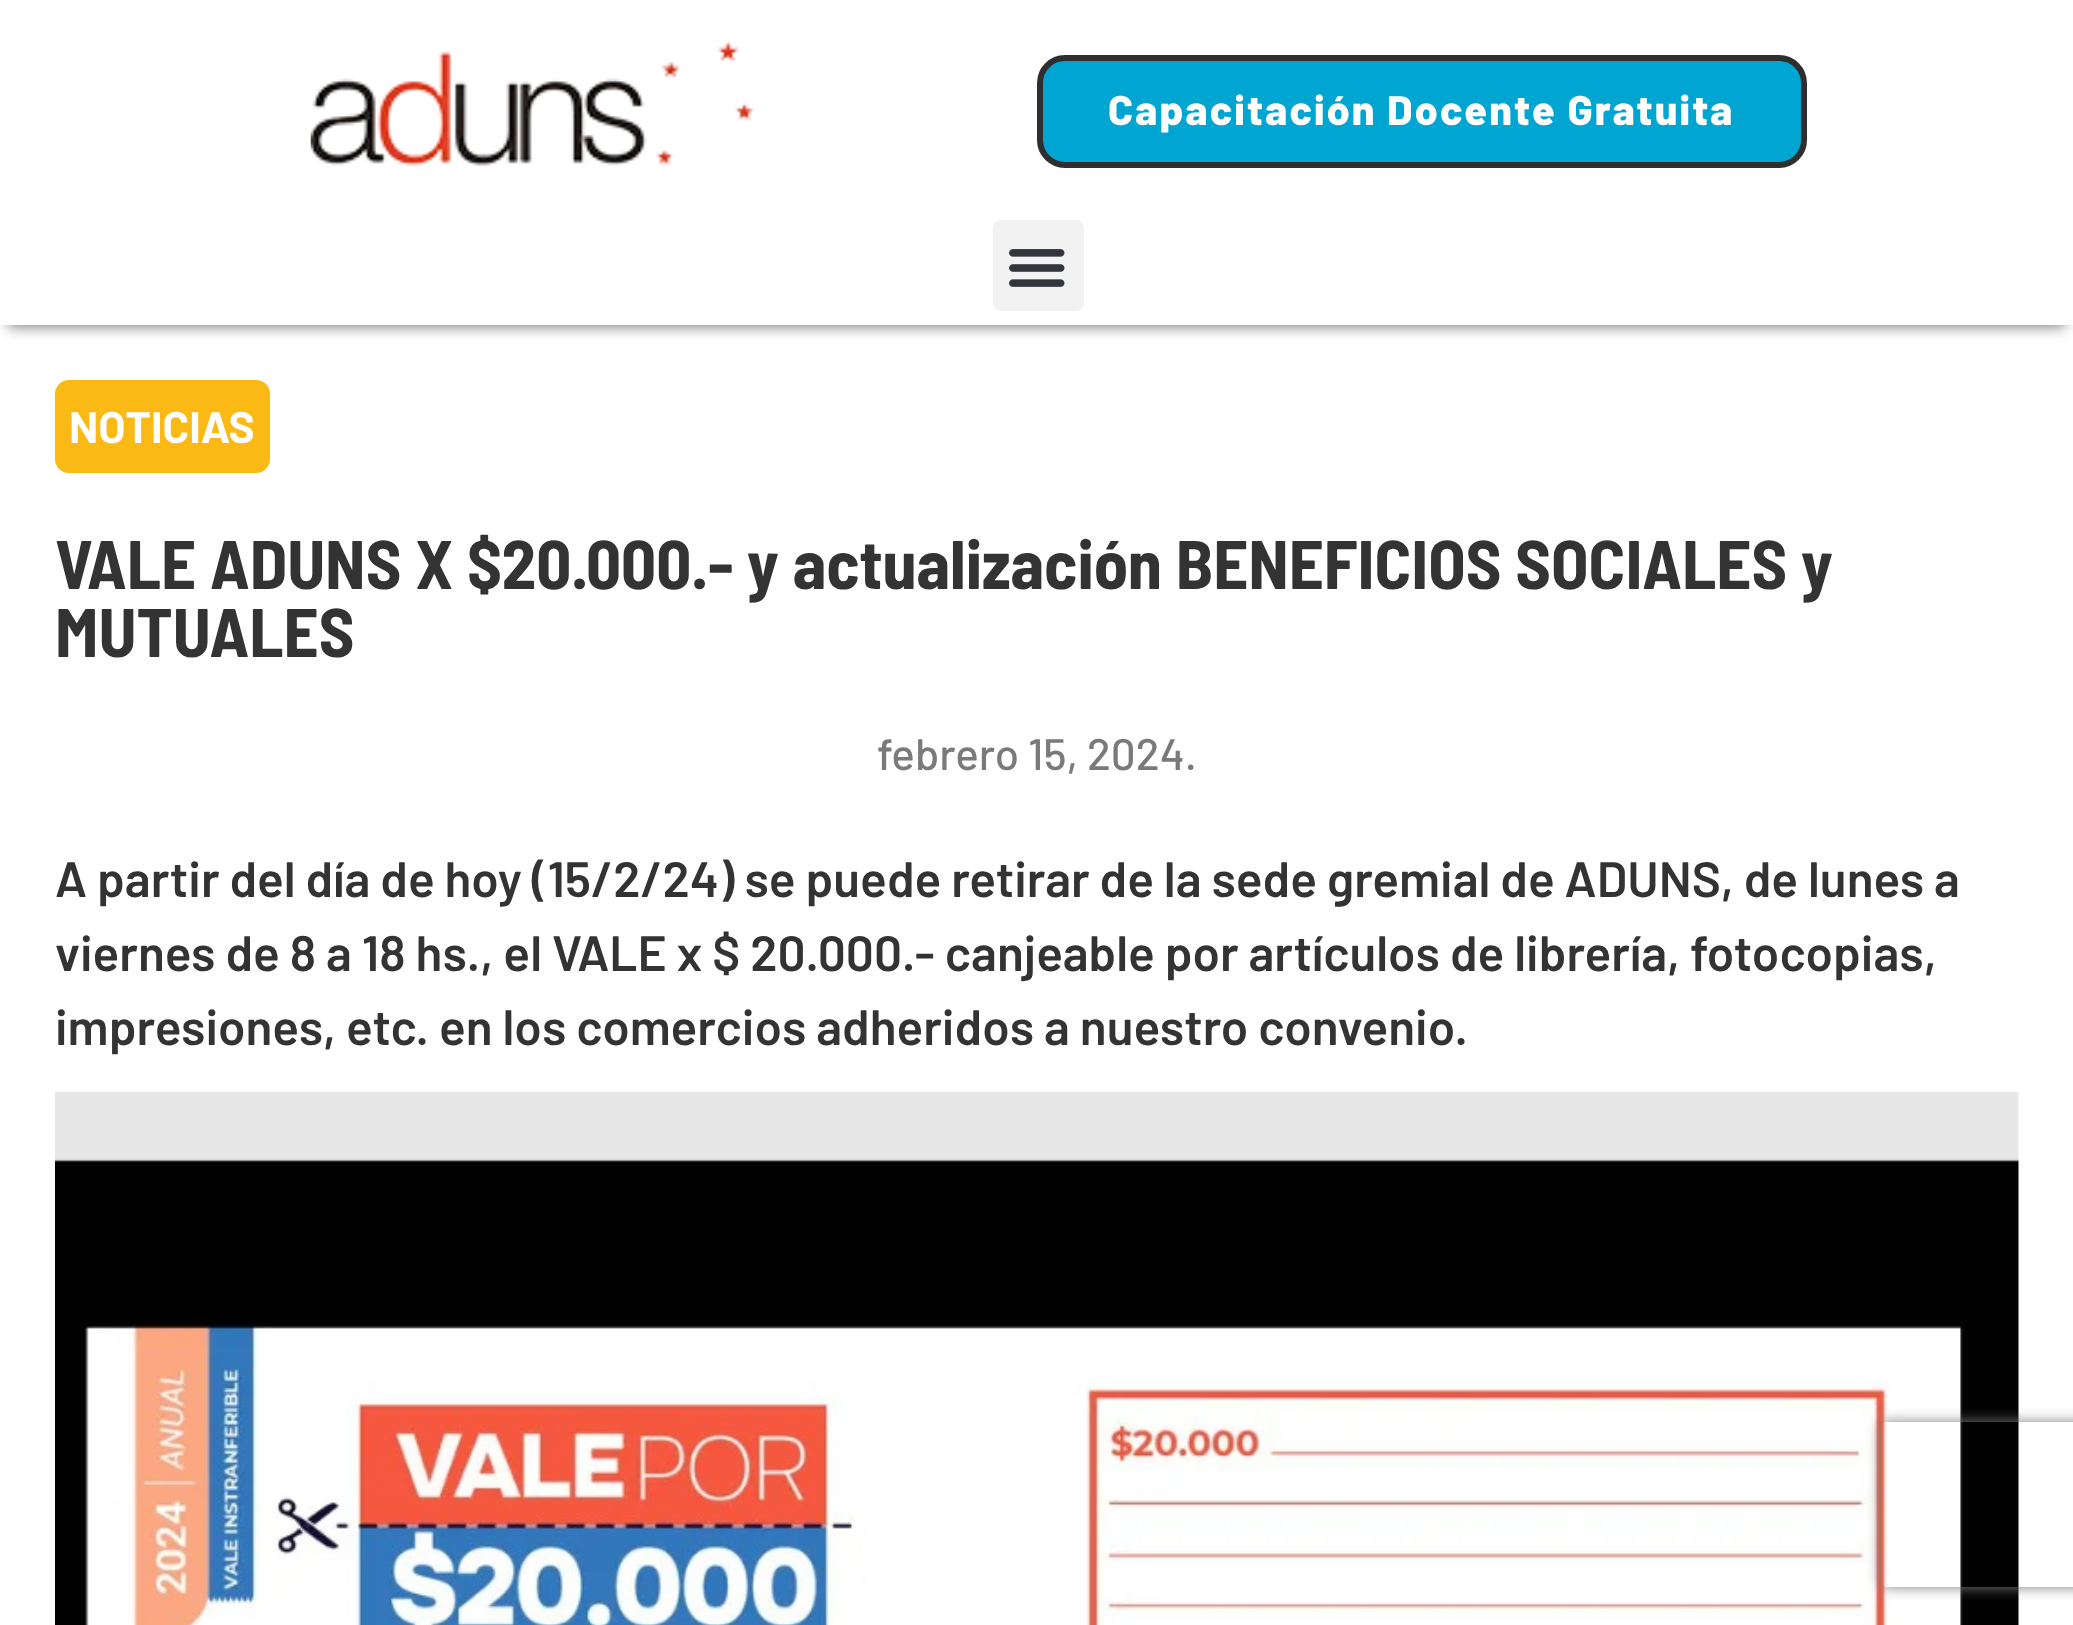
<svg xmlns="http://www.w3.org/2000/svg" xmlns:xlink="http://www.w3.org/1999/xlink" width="2073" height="1625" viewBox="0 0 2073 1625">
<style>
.cls-1{font:800 41.25px Barlow;letter-spacing:2.2px;fill:#ffffff}
.cls-2{font:bold 44px Barlow;fill:#ffffff}
.cls-3{font:bold 68.75px Barlow Semi Condensed;fill:#333333}
.cls-4{font:500 44px Barlow;fill:#7a7a7a}
.cls-5{font:600 49.5px Barlow;fill:#333333}
</style>
<defs>
<clipPath id="clip1"><path d="M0 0H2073V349H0ZM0 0H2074V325H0Z" clip-rule="evenodd"/></clipPath>
<clipPath id="clip2"><path d="M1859 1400H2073V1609H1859ZM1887 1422H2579C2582.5 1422 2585 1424.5 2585 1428V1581C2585 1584.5 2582.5 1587 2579 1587H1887C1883.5 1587 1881 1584.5 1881 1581V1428C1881 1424.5 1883.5 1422 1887 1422Z" clip-rule="evenodd"/></clipPath>
</defs>
<rect width="100%" height="100%" fill="#ffffff"/>
<g clip-path="url(#clip1)">
<rect fill="#000000" fill-opacity="0.5" filter="blur(7px)" x="8" y="19" width="2057" height="308"/>
</g>
<image xlink:href="image0.png" x="310" y="41" width="444" height="126"/>
<rect fill="#00a5d2" stroke="#2e2e2e" stroke-width="6" x="1040" y="58" width="764" height="107" rx="25"/>
<rect fill="#f2f2f2" x="993" y="220" width="91" height="91" rx="8"/>
<image xlink:href="image1.png" x="1009" y="249" width="56" height="38"/>
<rect fill="#fab915" x="55" y="380" width="215" height="93" rx="14"/>
<image xlink:href="image2.png" x="55" y="1091" width="1964" height="534"/>
<g clip-path="url(#clip2)">
<rect fill="#808080" filter="blur(7px)" x="1881" y="1422" width="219" height="165" rx="6"/>
</g>
<text class="cls-1" x="1108" y="125">Capacitación Docente Gratuita</text>
<text class="cls-2" x="69" y="443">NOTICIAS</text>
<text class="cls-3"><tspan x="55" y="589">VALE ADUNS X $20.000.- y actualización BENEFICIOS SOCIALES y</tspan><tspan x="55" y="657">MUTUALES</tspan></text>
<text class="cls-4" x="877" y="770">febrero 15, 2024.</text>
<text class="cls-5"><tspan x="55" y="897">A partir del día de hoy (15/2/24) se puede retirar de la sede gremial de ADUNS, de lunes a</tspan><tspan x="55" y="971">viernes de 8 a 18 hs., el VALE x $ 20.000.- canjeable por artículos de librería, fotocopias,</tspan><tspan x="55" y="1045">impresiones, etc. en los comercios adheridos a nuestro convenio.</tspan></text>
</svg>
